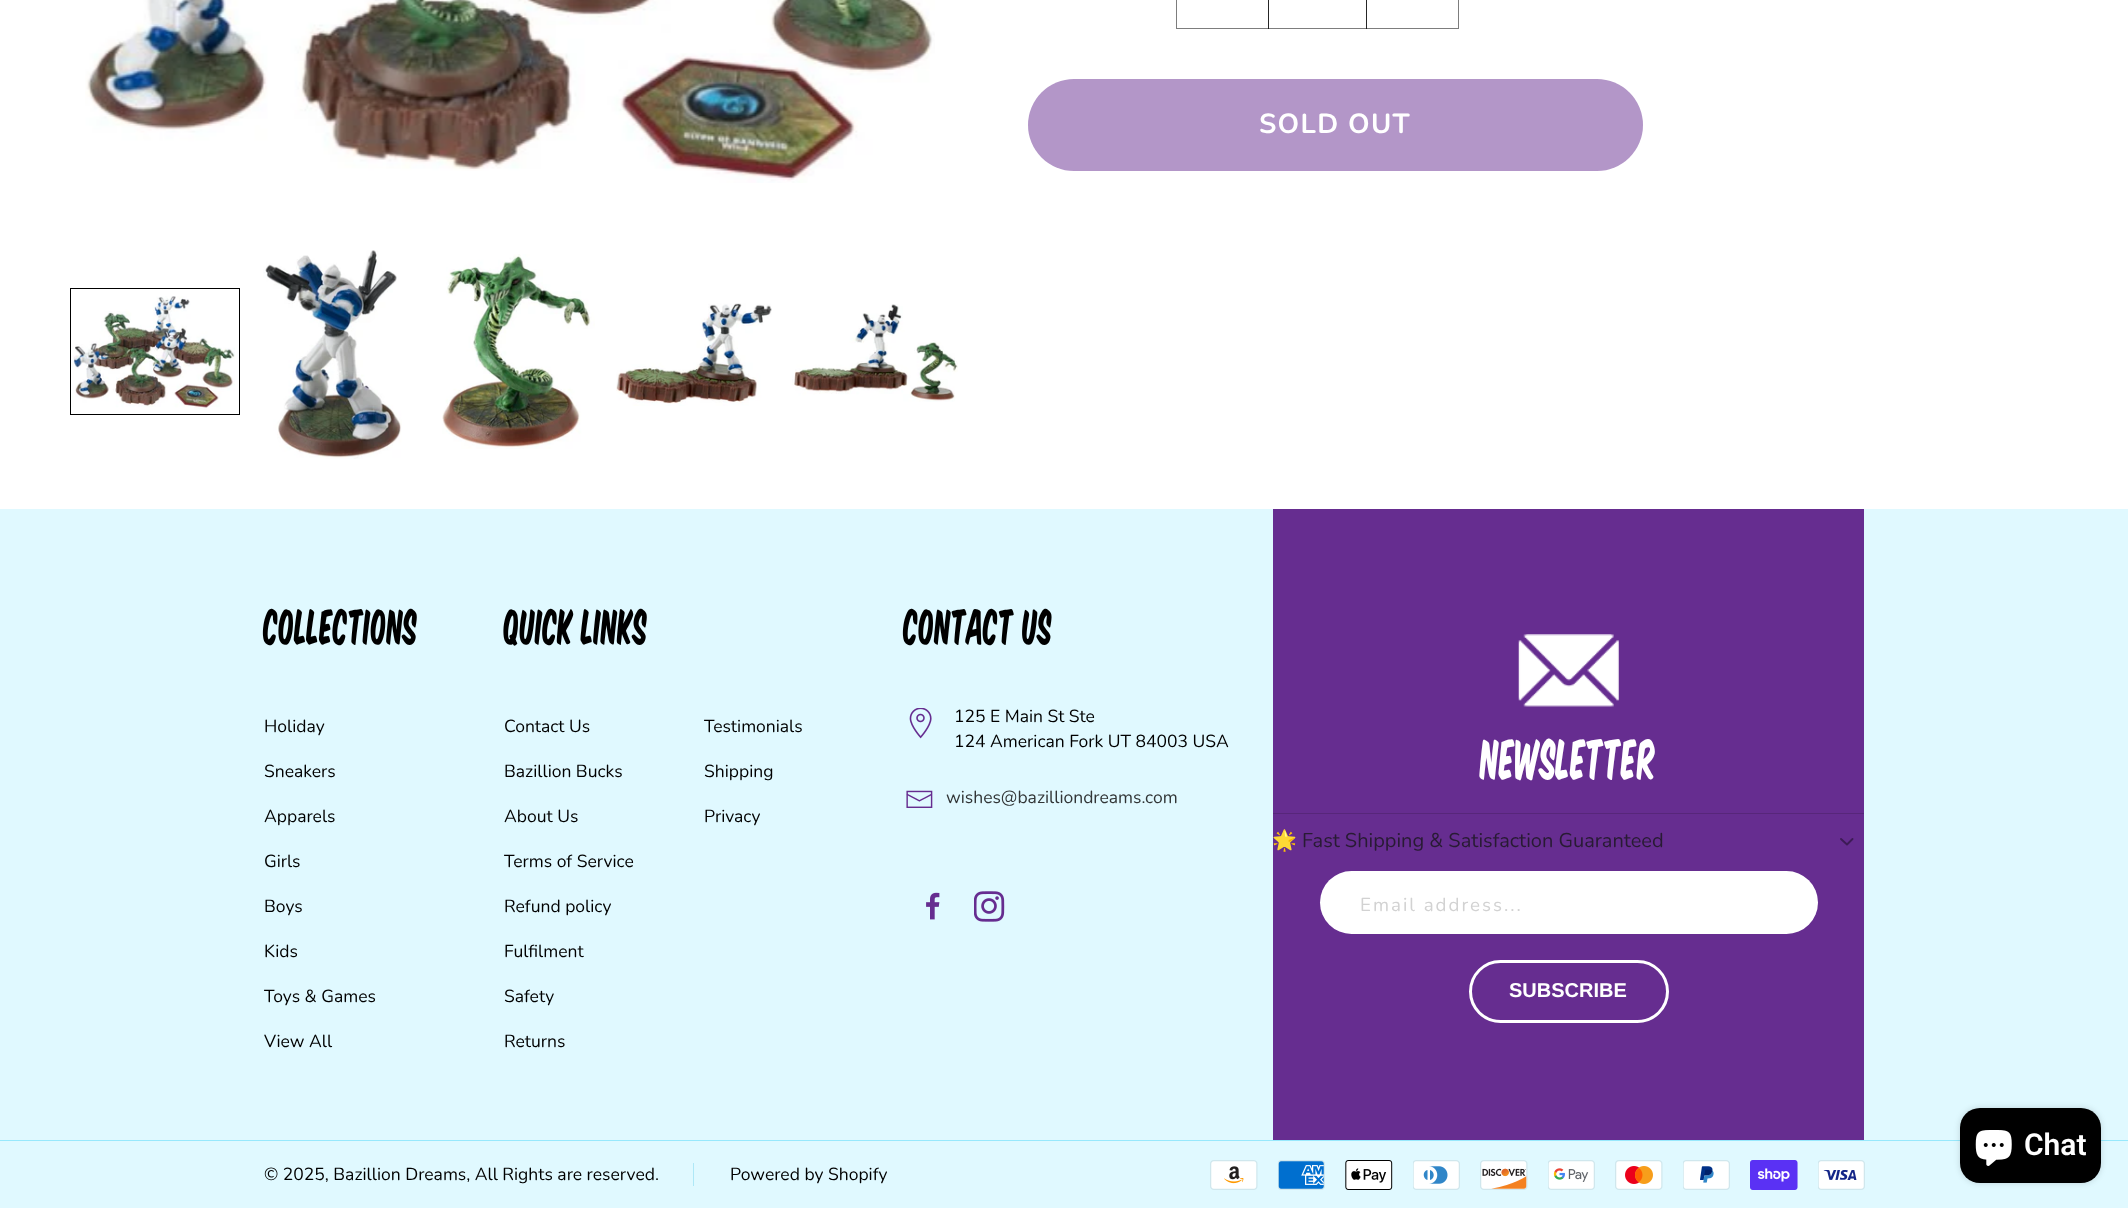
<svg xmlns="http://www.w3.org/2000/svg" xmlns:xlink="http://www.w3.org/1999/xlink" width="2128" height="1208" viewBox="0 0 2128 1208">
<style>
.cls-1{font:bold 27.5px Nunito;letter-spacing:1.25px;fill:#ffffff}
.cls-2{font:35px 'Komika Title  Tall';fill:#000000}
.cls-3{font:17.5px Nunito;fill:#000000}
.cls-4{font:17.5px Nunito;fill:#313536}
.cls-5{font:40px 'Komika Title  Tall';fill:#ffffff}
.cls-6{font:20px Noto Color Emoji;fill:#281b33}
.cls-7{font:20px Nunito;fill:#281b33}
.cls-8{font:18.75px Nunito;letter-spacing:2px;fill:#d2d2d2}
.cls-9{font:bold 20px Liberation Sans;fill:#ffffff}
.cls-10{font:600 30px Roboto;fill:#ffffff}
</style>
<rect width="100%" height="100%" fill="#ffffff"/>
<image xlink:href="image0.png" x="85" y="0" width="850" height="183"/>
<rect fill="none" stroke="#000000" x="70.5" y="288.5" width="169" height="126"/>
<image xlink:href="image1.png" x="71" y="296" width="164" height="114"/>
<image xlink:href="image2.png" x="263" y="250" width="139" height="209"/>
<image xlink:href="image3.png" x="442" y="254" width="153" height="195"/>
<image xlink:href="image4.png" x="616" y="303" width="156" height="103"/>
<image xlink:href="image5.png" x="792" y="304" width="166" height="98"/>
<rect fill="#262626" x="1366" y="0" width="1" height="29"/>
<rect fill="#262626" x="1268" y="0" width="1" height="29"/>
<rect fill="none" stroke="#121212" stroke-opacity="0.55" x="1176.5" y="-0.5" width="282" height="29"/>
<rect fill="#b396c8" x="1028" y="79" width="615" height="92" rx="46"/>
<rect fill="#e0f9ff" x="0" y="509" width="2128" height="699"/>
<image xlink:href="image6.png" x="909" y="708" width="23" height="31"/>
<image xlink:href="image7.png" x="906" y="790" width="27" height="18"/>
<image xlink:href="image8.png" x="926" y="892" width="14" height="28"/>
<image xlink:href="image9.png" x="974" y="891" width="31" height="31"/>
<rect fill="#662d90" x="1273" y="509" width="591" height="631"/>
<image xlink:href="image10.png" x="1518" y="634" width="101" height="73"/>
<rect fill="#57267a" x="1273" y="813" width="591" height="1"/>
<path fill="none" stroke="#3d1b56" stroke-width="1.9" stroke-linecap="round" stroke-linejoin="round" d="M1852.5 839L1847 844.5L1841 839"/>
<rect fill="#ffffff" x="1320" y="871" width="498" height="63" rx="31.5"/>
<rect fill="none" stroke="#ffffff" stroke-width="3" x="1470.5" y="961.5" width="197" height="60" rx="30"/>
<rect fill="#97e8fc" x="0" y="1140" width="2128" height="1"/>
<rect fill="#aee8f7" x="693" y="1163" width="1" height="23"/>
<image xlink:href="image11.png" x="1210" y="1160" width="48" height="30"/>
<image xlink:href="image12.png" x="1278" y="1160" width="47" height="30"/>
<image xlink:href="image13.png" x="1345" y="1160" width="48" height="30"/>
<image xlink:href="image14.png" x="1413" y="1160" width="47" height="30"/>
<image xlink:href="image15.png" x="1480" y="1160" width="48" height="30"/>
<image xlink:href="image16.png" x="1548" y="1160" width="47" height="30"/>
<image xlink:href="image17.png" x="1615" y="1160" width="48" height="30"/>
<image xlink:href="image18.png" x="1683" y="1160" width="47" height="30"/>
<image xlink:href="image19.png" x="1750" y="1160" width="48" height="30"/>
<image xlink:href="image20.png" x="1818" y="1160" width="47" height="30"/>
<rect fill="#000000" fill-opacity="0.15" filter="blur(3px)" x="1960" y="1108" width="141" height="75" rx="20"/>
<rect fill="#000000" x="1960" y="1108" width="141" height="75" rx="20"/>
<image xlink:href="image21.png" x="1975" y="1130" width="37" height="36"/>
<text class="cls-1" x="1259" y="133">SOLD OUT</text>
<text class="cls-2" x="264" y="644">COLLECTIONS</text>
<text class="cls-3" x="264" y="732">Holiday</text>
<text class="cls-3" x="264" y="777">Sneakers</text>
<text class="cls-3" x="264" y="822">Apparels</text>
<text class="cls-3" x="264" y="867">Girls</text>
<text class="cls-3" x="264" y="912">Boys</text>
<text class="cls-3" x="264" y="957">Kids</text>
<text class="cls-3" x="264" y="1002">Toys &amp; Games</text>
<text class="cls-3" x="264" y="1047">View All</text>
<text class="cls-2" x="504" y="644">QUICK LINKS</text>
<text class="cls-3" x="504" y="732">Contact Us</text>
<text class="cls-3" x="704" y="732">Testimonials</text>
<text class="cls-3" x="504" y="777">Bazillion Bucks</text>
<text class="cls-3" x="704" y="777">Shipping</text>
<text class="cls-3" x="504" y="822">About Us</text>
<text class="cls-3" x="704" y="822">Privacy</text>
<text class="cls-3" x="504" y="867">Terms of Service</text>
<text class="cls-3" x="504" y="912">Refund policy</text>
<text class="cls-3" x="504" y="957">Fulfilment</text>
<text class="cls-3" x="504" y="1002">Safety</text>
<text class="cls-3" x="504" y="1047">Returns</text>
<text class="cls-2" x="904" y="644">CONTACT US</text>
<text class="cls-3"><tspan x="954" y="722">125 E Main St Ste</tspan><tspan x="954" y="747">124 American Fork UT 84003 USA</tspan></text>
<text class="cls-4" x="946" y="803">wishes@bazilliondreams.com</text>
<text class="cls-5" x="1481" y="779">NEWSLETTER</text>
<text class="cls-6" x="1272" y="847">🌟</text>
<text class="cls-7" x="1302" y="847">Fast Shipping &amp; Satisfaction Guaranteed</text>
<text class="cls-8" x="1360" y="911">Email address...</text>
<text class="cls-9" x="1509" y="997">SUBSCRIBE</text>
<text class="cls-3" x="264" y="1180">© 2025, Bazillion Dreams, All Rights are reserved.</text>
<text class="cls-3" x="730" y="1180">Powered by Shopify</text>
<text class="cls-10" x="2024" y="1155">Chat</text>
</svg>
